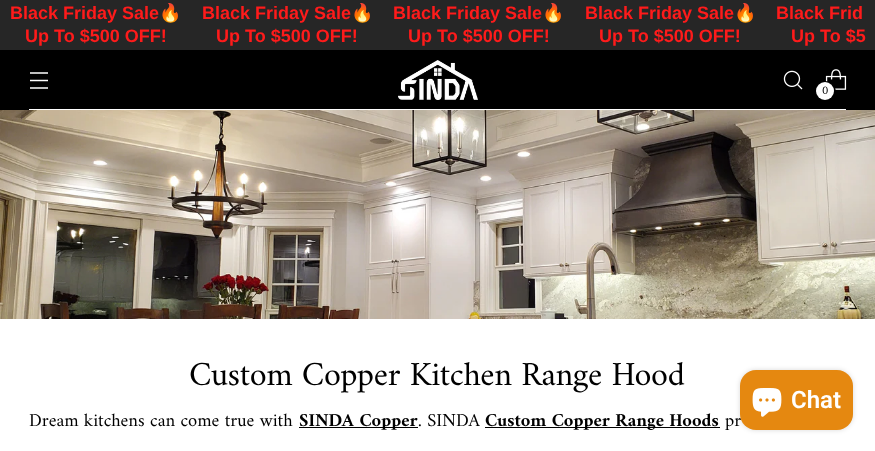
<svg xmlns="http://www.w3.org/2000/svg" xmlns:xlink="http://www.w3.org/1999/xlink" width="875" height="451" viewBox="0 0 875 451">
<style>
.cls-1{font:bold 18px Liberation Sans;fill:#fe1b1b}
.cls-2{font:bold 18px Noto Color Emoji;fill:#fe1b1b}
.cls-3{font:12px Amiri;fill:#000000}
.cls-4{font:34.1px Amiri;letter-spacing:-0.35px;fill:#000000}
.cls-5{font:18.5px Amiri;fill:#000000}
.cls-6{font:bold 18.5px Amiri;fill:#000000}
.cls-7{font:600 24px Roboto;fill:#ffffff}
</style>
<rect width="100%" height="100%" fill="#ffffff"/>
<rect fill="#262626" x="0" y="0" width="875" height="50"/>
<rect fill="#000000" x="0" y="50" width="875" height="60"/>
<rect fill="#ffffff" x="29" y="109" width="817" height="1"/>
<path fill="none" stroke="#ffffff" stroke-width="1.3" d="M30 80.5H48M30 73H48M30 88H48"/>
<image xlink:href="image0.png" x="398" y="60" width="80" height="40"/>
<image xlink:href="image1.png" x="783" y="70" width="20" height="20"/>
<image xlink:href="image2.png" x="825" y="69" width="22" height="21"/>
<circle fill="none" stroke="#000000" stroke-width="2" cx="825.5" cy="91.5" r="9.5"/>
<circle fill="#ffffff" cx="825" cy="91" r="9"/>
<image xlink:href="image3.png" x="0" y="110" width="875" height="209"/>
<rect fill="#000000" x="299" y="427" width="119" height="1"/>
<rect fill="#000000" x="485" y="427" width="235" height="1"/>
<rect fill="#000000" fill-opacity="0.15" filter="blur(2.5px)" x="740" y="370" width="113" height="60" rx="16"/>
<text class="cls-1" x="10" y="19">Black Friday Sale</text>
<text class="cls-2" x="159" y="19">🔥</text>
<text class="cls-1" x="25" y="42">Up To $500 OFF!</text>
<text class="cls-1" x="202" y="19">Black Friday Sale</text>
<text class="cls-2" x="351" y="19">🔥</text>
<text class="cls-1" x="216" y="42">Up To $500 OFF!</text>
<text class="cls-1" x="393" y="19">Black Friday Sale</text>
<text class="cls-2" x="542" y="19">🔥</text>
<text class="cls-1" x="408" y="42">Up To $500 OFF!</text>
<text class="cls-1" x="585" y="19">Black Friday Sale</text>
<text class="cls-2" x="734" y="19">🔥</text>
<text class="cls-1" x="599" y="42">Up To $500 OFF!</text>
<text class="cls-1" x="776" y="19">Black Frid</text>
<text class="cls-1" x="791" y="42">Up To $5</text>
<text class="cls-3" x="822" y="94">0</text>
<text class="cls-4" x="189" y="385">Custom Copper Kitchen Range Hood</text>
<text class="cls-5" x="29" y="426">Dream kitchens can come true with</text>
<text class="cls-6" x="299" y="426">SINDA Copper</text>
<text class="cls-5" x="418" y="426">. SINDA</text>
<text class="cls-6" x="485" y="426">Custom Copper Range Hoods</text>
<text class="cls-5" x="725" y="426">pr</text>
<rect fill="#e58810" x="740" y="370" width="113" height="60" rx="16"/>
<image xlink:href="image4.png" x="752" y="388" width="30" height="29"/>
<text class="cls-7" x="791" y="408">Chat</text>
</svg>
